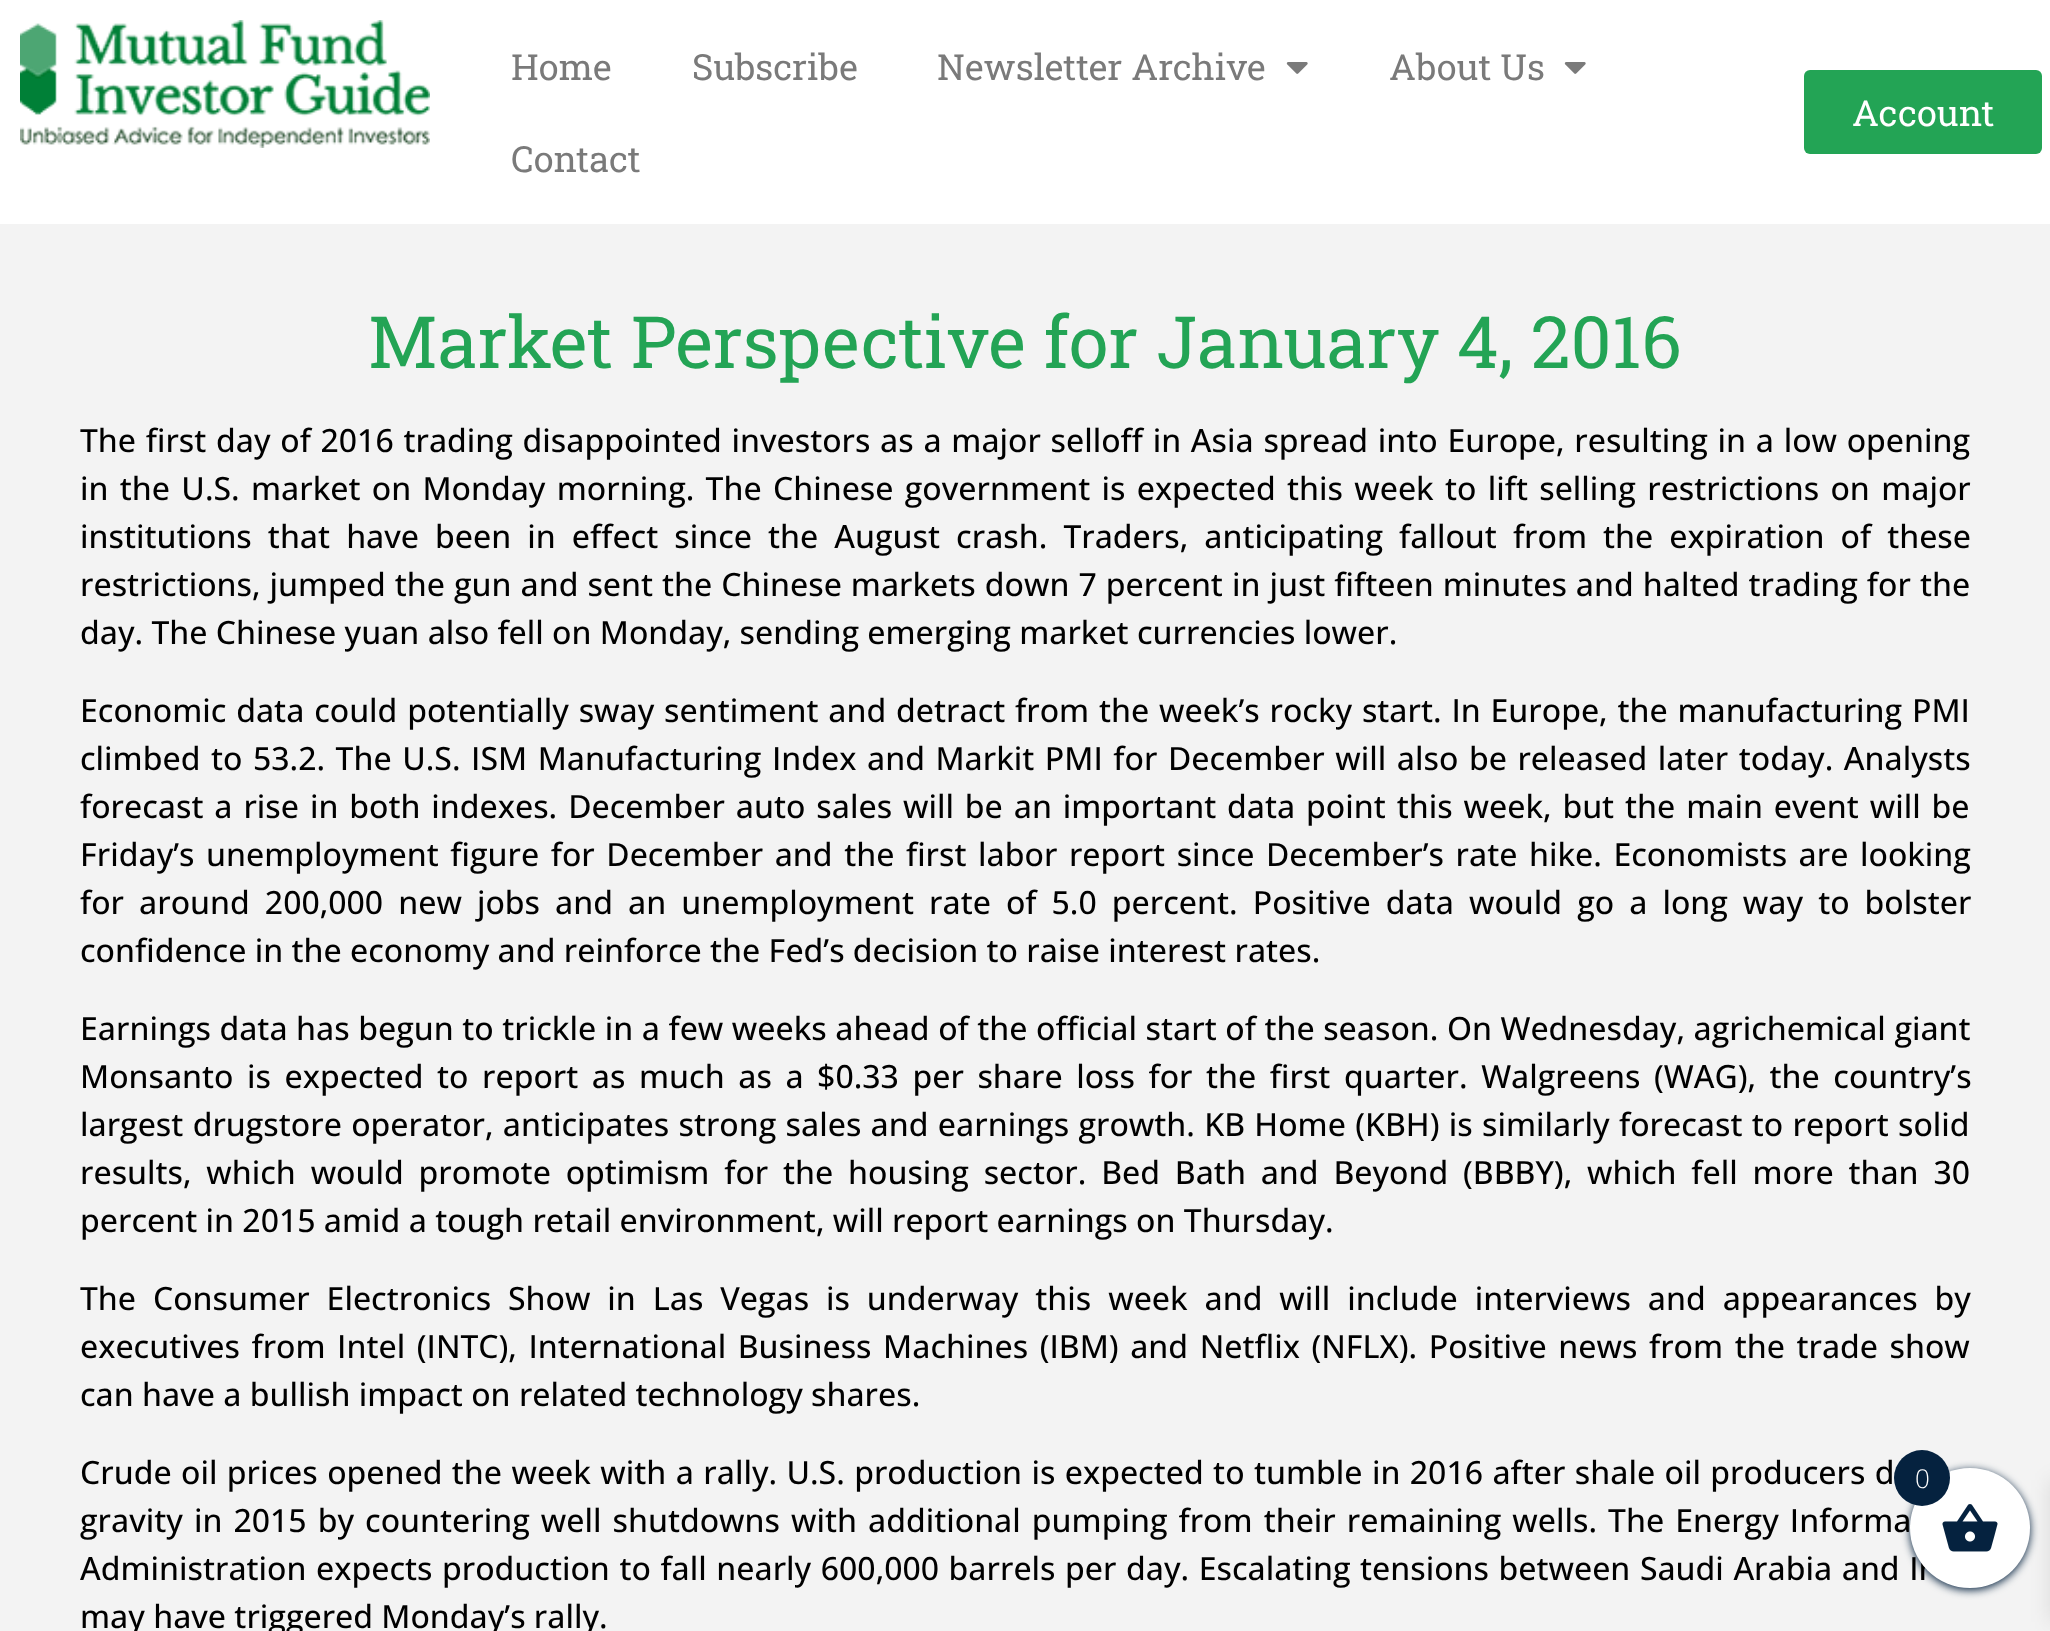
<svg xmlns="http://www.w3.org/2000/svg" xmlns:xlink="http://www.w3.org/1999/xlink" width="2050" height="1631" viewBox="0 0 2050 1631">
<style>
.cls-1{font:36px Roboto Slab;fill:#7a7a7a}
.cls-2{font:36px Roboto Slab;fill:#ffffff}
.cls-3{font:72px Roboto Slab;fill:#23a455}
.cls-4{font:500 32px Open Sans;fill:#000000}
.cls-5{font:300 26px Open Sans;fill:#ffffff}
</style>
<rect width="100%" height="100%" fill="#ffffff"/>
<image xlink:href="image0.png" x="20" y="20" width="410" height="128"/>
<image xlink:href="image1.png" x="1286" y="62" width="22" height="12"/>
<image xlink:href="image1.png" x="1564" y="62" width="22" height="12"/>
<rect fill="#23a455" x="1804" y="70" width="238" height="84" rx="6"/>
<rect fill="#f3f3f3" x="0" y="224" width="2050" height="1407"/>
<rect fill="#05223f" filter="blur(4px)" x="1910" y="1470" width="120" height="120" rx="60"/>
<rect fill="#000000" fill-opacity="0.1" filter="blur(10px)" x="2050" y="1480" width="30" height="142"/>
<text class="cls-1" x="511" y="80">Home</text>
<text class="cls-1" x="692" y="80">Subscribe</text>
<text class="cls-1" x="937" y="80">Newsletter Archive</text>
<text class="cls-1" x="1389" y="80">About Us</text>
<text class="cls-1" x="511" y="172">Contact</text>
<text class="cls-2" x="1852" y="126">Account</text>
<text class="cls-3" x="368" y="368">Market Perspective for January 4, 2016</text>
<text class="cls-4"><tspan x="80" y="452" word-spacing="1.4">The first day of 2016 trading disappointed investors as a major selloff in Asia spread into Europe, resulting in a low opening</tspan><tspan x="80" y="500" word-spacing="3">in the U.S. market on Monday morning. The Chinese government is expected this week to lift selling restrictions on major</tspan><tspan x="80" y="548" word-spacing="7.75">institutions that have been in effect since the August crash. Traders, anticipating fallout from the expiration of these</tspan><tspan x="80" y="596" word-spacing="0.7">restrictions, jumped the gun and sent the Chinese markets down 7 percent in just fifteen minutes and halted trading for the</tspan><tspan x="80" y="644">day. The Chinese yuan also fell on Monday, sending emerging market currencies lower.</tspan></text>
<text class="cls-4"><tspan x="80" y="722" word-spacing="1.5">Economic data could potentially sway sentiment and detract from the week’s rocky start. In Europe, the manufacturing PMI</tspan><tspan x="80" y="770" word-spacing="2.25">climbed to 53.2. The U.S. ISM Manufacturing Index and Markit PMI for December will also be released later today. Analysts</tspan><tspan x="80" y="818" word-spacing="2.6">forecast a rise in both indexes. December auto sales will be an important data point this week, but the main event will be</tspan><tspan x="80" y="866" word-spacing="3.25">Friday’s unemployment figure for December and the first labor report since December’s rate hike. Economists are looking</tspan><tspan x="80" y="914" word-spacing="6.75">for around 200,000 new jobs and an unemployment rate of 5.0 percent. Positive data would go a long way to bolster</tspan><tspan x="80" y="962">confidence in the economy and reinforce the Fed’s decision to raise interest rates.</tspan></text>
<text class="cls-4"><tspan x="80" y="1040" word-spacing="0.25">Earnings data has begun to trickle in a few weeks ahead of the official start of the season. On Wednesday, agrichemical giant</tspan><tspan x="80" y="1088" word-spacing="5.25">Monsanto is expected to report as much as a $0.33 per share loss for the first quarter. Walgreens (WAG), the country’s</tspan><tspan x="80" y="1136" word-spacing="1">largest drugstore operator, anticipates strong sales and earnings growth. KB Home (KBH) is similarly forecast to report solid</tspan><tspan x="80" y="1184" word-spacing="6.5">results, which would promote optimism for the housing sector. Bed Bath and Beyond (BBBY), which fell more than 30</tspan><tspan x="80" y="1232">percent in 2015 amid a tough retail environment, will report earnings on Thursday.</tspan></text>
<text class="cls-4"><tspan x="80" y="1310" word-spacing="8.6">The Consumer Electronics Show in Las Vegas is underway this week and will include interviews and appearances by</tspan><tspan x="80" y="1358" word-spacing="3.25">executives from Intel (INTC), International Business Machines (IBM) and Netflix (NFLX). Positive news from the trade show</tspan><tspan x="80" y="1406">can have a bullish impact on related technology shares.</tspan></text>
<text class="cls-4"><tspan x="80" y="1484" word-spacing="1.1">Crude oil prices opened the week with a rally. U.S. production is expected to tumble in 2016 after shale oil producers d</tspan><tspan x="80" y="1532" word-spacing="2.75">gravity in 2015 by countering well shutdowns with additional pumping from their remaining wells. The Energy Informa</tspan><tspan x="80" y="1580" word-spacing="1.25">Administration expects production to fall nearly 600,000 barrels per day. Escalating tensions between Saudi Arabia and Ir</tspan><tspan x="80" y="1628">may have triggered Monday’s rally.</tspan></text>
<circle fill="#ffffff" cx="1970" cy="1528" r="60"/>
<image xlink:href="image2.png" x="1942" y="1504" width="56" height="48"/>
<circle fill="#05223f" cx="1922" cy="1478" r="28"/>
<text class="cls-5" x="1915" y="1488">0</text>
</svg>
